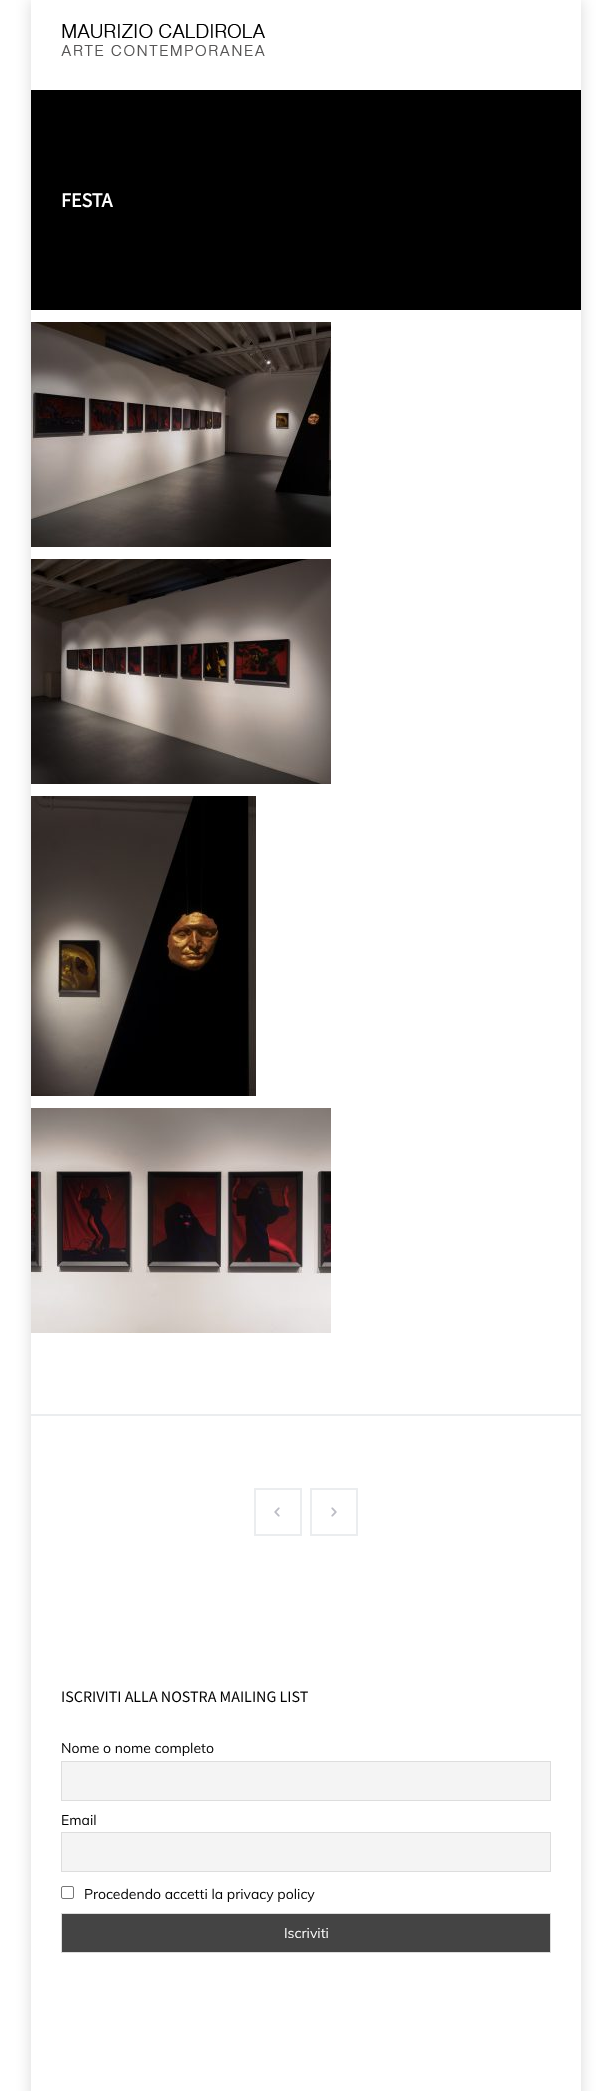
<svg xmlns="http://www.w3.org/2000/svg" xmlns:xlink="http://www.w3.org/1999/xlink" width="612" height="2091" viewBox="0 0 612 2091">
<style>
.cls-1{font:bold 20px Source Sans Pro;fill:#ffffff}
.cls-2{font:16px Source Sans Pro;fill:#000000}
.cls-3{font:14px Muli;fill:#000000}
.cls-4{font:14px Muli;fill:#ffffff}
</style>
<defs>
<clipPath id="clip1"><path d="M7 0H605V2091H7ZM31 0H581V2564H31Z" clip-rule="evenodd"/></clipPath>
</defs>
<rect width="100%" height="100%" fill="#ffffff"/>
<g clip-path="url(#clip1)">
<rect fill="#000000" fill-opacity="0.15" filter="blur(7.5px)" x="31" y="0" width="550" height="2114"/>
</g>
<image xlink:href="image0.png" x="61" y="24" width="204" height="32"/>
<rect fill="#000000" x="31" y="90" width="550" height="220"/>
<image xlink:href="image1.png" x="31" y="322" width="300" height="225"/>
<image xlink:href="image2.png" x="31" y="559" width="300" height="225"/>
<image xlink:href="image3.png" x="31" y="796" width="225" height="300"/>
<image xlink:href="image4.png" x="31" y="1108" width="300" height="225"/>
<rect fill="#ebedef" x="31" y="1414" width="550" height="2"/>
<rect fill="none" stroke="#ebedef" stroke-width="2" x="255" y="1489" width="46" height="46"/>
<image xlink:href="image5.png" x="274" y="1507" width="6" height="10"/>
<rect fill="none" stroke="#ebedef" stroke-width="2" x="311" y="1489" width="46" height="46"/>
<image xlink:href="image6.png" x="331" y="1507" width="6" height="10"/>
<rect fill="#f4f4f4" stroke="#dddddd" x="61.5" y="1761.5" width="489" height="39"/>
<rect fill="#f4f4f4" stroke="#dddddd" x="61.5" y="1832.5" width="489" height="39"/>
<rect fill="none" stroke="#767676" x="61.5" y="1886.5" width="12" height="12" rx="1.5"/>
<rect fill="#444444" stroke="#dddddd" x="61.5" y="1913.5" width="489" height="39"/>
<text class="cls-1" x="61" y="207">FESTA</text>
<text class="cls-2" x="61" y="1702">ISCRIVITI ALLA NOSTRA MAILING LIST</text>
<text class="cls-3" x="61" y="1753">Nome o nome completo</text>
<text class="cls-3" x="61" y="1825">Email</text>
<text class="cls-3" x="84" y="1899">Procedendo accetti la privacy policy</text>
<text class="cls-4" x="284" y="1938">Iscriviti</text>
</svg>
